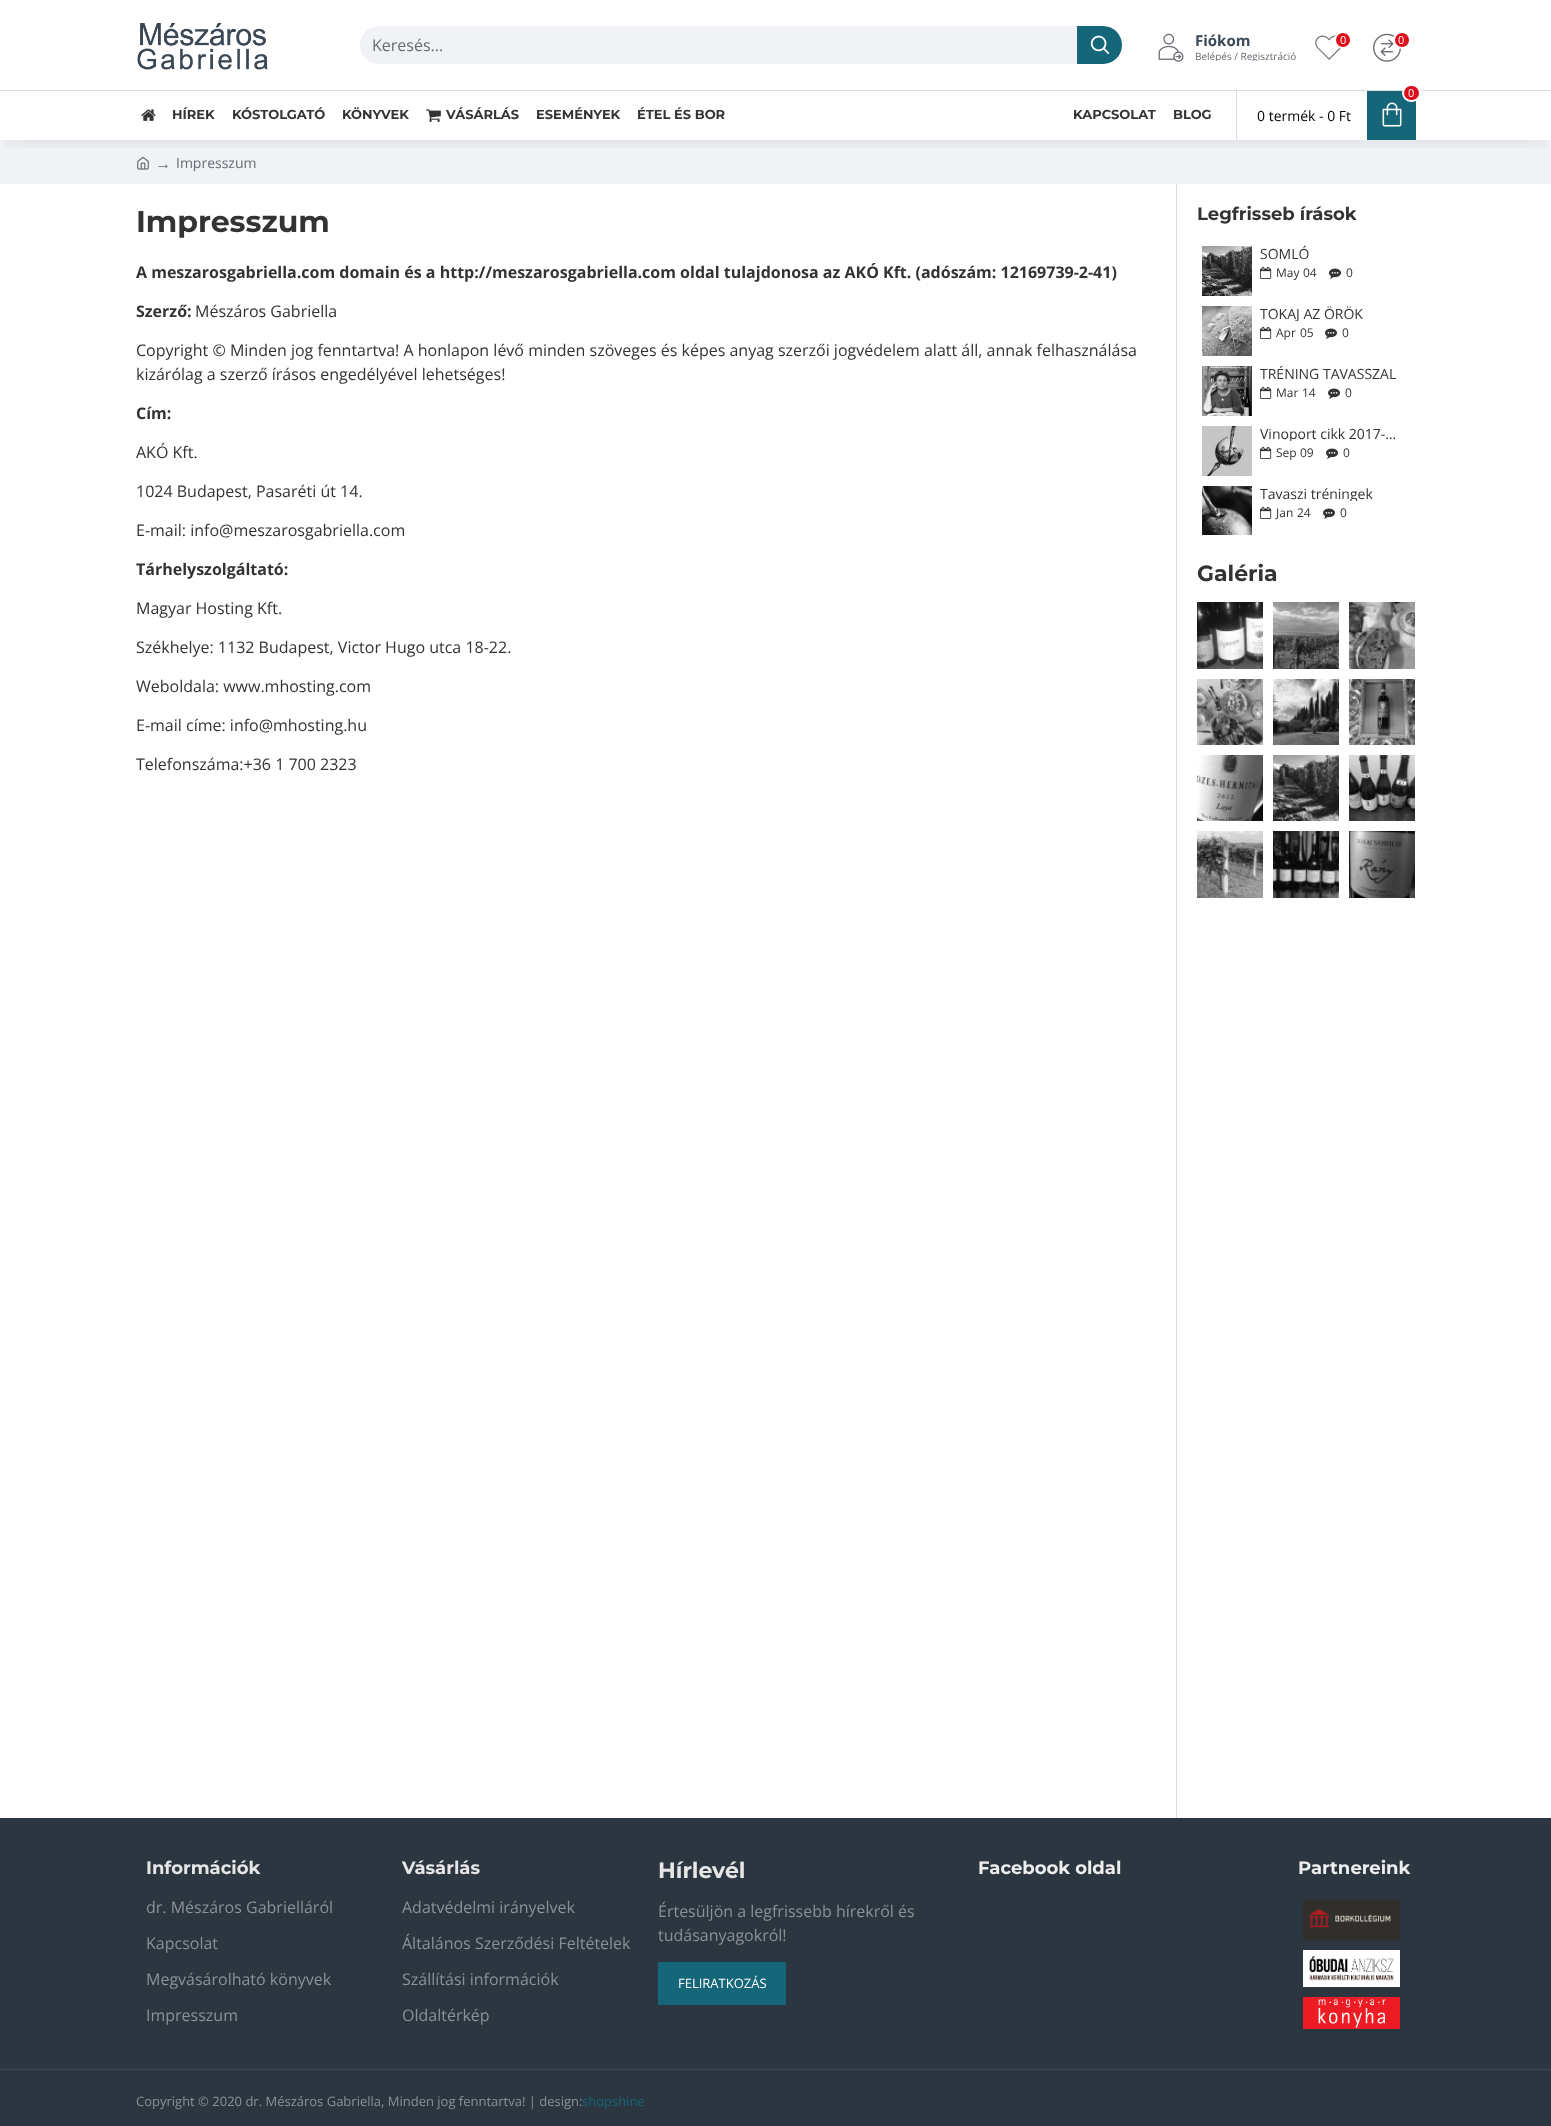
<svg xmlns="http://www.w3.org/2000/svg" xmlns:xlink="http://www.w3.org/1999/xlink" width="1551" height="2126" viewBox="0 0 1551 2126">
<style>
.cls-1{font:16px Open Sans;fill:#696973}
.cls-2{font:bold 15px Open Sans;fill:#3a4754}
.cls-3{font:10px Open Sans;fill:#696973}
.cls-4{font:11px Open Sans;fill:#ffffff}
.cls-5{font:14px Open Sans;fill:#000000}
.cls-6{font:bold 13px Montserrat;fill:#333333}
.cls-7{font:16px Liberation Serif;fill:#696973}
.cls-8{font:14px Open Sans;fill:#696973}
.cls-9{font:bold 30px Montserrat;fill:#333333}
.cls-10{font:bold 16px Open Sans;fill:#333333}
.cls-11{font:16px Open Sans;fill:#333333}
.cls-12{font:bold 18px Montserrat;fill:#333333}
.cls-13{font:14px Open Sans;fill:#333333}
.cls-14{font:12px Open Sans;fill:#333333}
.cls-15{font:bold 22px Montserrat;fill:#333333}
.cls-16{font:bold 18px Montserrat;fill:#e6e6e6}
.cls-17{font:16px Open Sans;fill:#8b9198}
.cls-18{font:bold 22px Montserrat;fill:#e6e6e6}
.cls-19{font:13px Open Sans;fill:#ffffff}
.cls-20{font:bold 18px Montserrat;fill:#eeeeee}
.cls-21{font:13px Open Sans;fill:#8b9198}
.cls-22{font:13px Open Sans;fill:#146678}
</style>
<defs>
<clipPath id="clip1"><rect x="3" y="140" width="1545" height="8"/></clipPath>
<clipPath id="clip2"><rect x="1195" y="29" width="101" height="32"/></clipPath>
<clipPath id="clip3"><rect x="1260" y="306" width="142" height="15"/></clipPath>
<clipPath id="clip4"><rect x="1260" y="366" width="142" height="15"/></clipPath>
<clipPath id="clip5"><rect x="1260" y="426" width="142" height="15"/></clipPath>
<clipPath id="clip6"><rect x="1260" y="486" width="142" height="15"/></clipPath>
</defs>
<rect width="100%" height="100%" fill="#ffffff"/>
<rect fill="#f0f2f5" x="0" y="140" width="1551" height="44"/>
<image xlink:href="image8.png" x="137" y="156" width="12" height="14"/>
<g clip-path="url(#clip1)">
<rect fill="#000000" fill-opacity="0.1" filter="blur(10px)" x="5" y="10" width="1541" height="130"/>
</g>
<image xlink:href="image0.png" x="137" y="22" width="131" height="48"/>
<path fill="#f0f2f5" d="M379 26H1077V64H379C368.5 64 360 55.5 360 45C360 34.5 368.5 26 379 26Z"/>
<path fill="#146678" d="M1077 26H1103C1113.5 26 1122 34.5 1122 45C1122 55.5 1113.5 64 1103 64H1077Z"/>
<image xlink:href="image1.png" x="1090" y="35" width="20" height="19"/>
<image xlink:href="image2.png" x="1158" y="33" width="26" height="29"/>
<image xlink:href="image3.png" x="1315" y="35" width="26" height="25"/>
<circle fill="#dd0e1c" stroke="#ffffff" stroke-width="2" cx="1343" cy="40" r="8"/>
<image xlink:href="image4.png" x="1373" y="33" width="28" height="29"/>
<circle fill="#dd0e1c" stroke="#ffffff" stroke-width="2" cx="1402" cy="40" r="8"/>
<rect fill="#dddddd" x="0" y="90" width="1551" height="1"/>
<rect fill="#dddddd" x="1236" y="90" width="1" height="50"/>
<rect fill="#146678" x="1367" y="91" width="49" height="49"/>
<rect fill="#dd0e1c" stroke="#ffffff" stroke-width="2" x="1403" y="85" width="17" height="16" rx="8"/>
<image xlink:href="image5.png" x="1382" y="102" width="20" height="25"/>
<image xlink:href="image6.png" x="141" y="109" width="15" height="12"/>
<image xlink:href="image7.png" x="426" y="109" width="15" height="13"/>
<rect fill="#dddddd" x="1176" y="184" width="1" height="1634"/>
<image xlink:href="image9.png" x="1202" y="246" width="50" height="50"/>
<image xlink:href="image10.png" x="1260" y="266" width="12" height="13"/>
<image xlink:href="image11.png" x="1329" y="268" width="12" height="11"/>
<image xlink:href="image12.png" x="1202" y="306" width="50" height="50"/>
<image xlink:href="image10.png" x="1260" y="326" width="12" height="13"/>
<image xlink:href="image11.png" x="1325" y="328" width="12" height="11"/>
<image xlink:href="image13.png" x="1202" y="366" width="50" height="50"/>
<image xlink:href="image10.png" x="1260" y="386" width="12" height="13"/>
<image xlink:href="image11.png" x="1328" y="388" width="12" height="11"/>
<image xlink:href="image14.png" x="1202" y="426" width="50" height="50"/>
<image xlink:href="image10.png" x="1260" y="446" width="12" height="13"/>
<image xlink:href="image11.png" x="1326" y="448" width="12" height="11"/>
<image xlink:href="image15.png" x="1202" y="486" width="50" height="50"/>
<image xlink:href="image10.png" x="1260" y="506" width="12" height="13"/>
<image xlink:href="image11.png" x="1323" y="508" width="12" height="11"/>
<image xlink:href="image16.png" x="1197" y="602" width="66" height="67"/>
<image xlink:href="image17.png" x="1273" y="602" width="66" height="67"/>
<image xlink:href="image18.png" x="1349" y="602" width="66" height="67"/>
<image xlink:href="image19.png" x="1197" y="679" width="66" height="66"/>
<image xlink:href="image20.png" x="1273" y="679" width="66" height="66"/>
<image xlink:href="image21.png" x="1349" y="679" width="66" height="66"/>
<image xlink:href="image22.png" x="1197" y="755" width="66" height="66"/>
<image xlink:href="image23.png" x="1273" y="755" width="66" height="66"/>
<image xlink:href="image24.png" x="1349" y="755" width="66" height="66"/>
<image xlink:href="image25.png" x="1197" y="831" width="66" height="67"/>
<image xlink:href="image26.png" x="1273" y="831" width="66" height="67"/>
<image xlink:href="image27.png" x="1349" y="831" width="66" height="67"/>
<rect fill="#2c3640" x="0" y="1818" width="1551" height="308"/>
<rect fill="#146678" x="658" y="1962" width="128" height="43"/>
<image xlink:href="image28.png" x="1303" y="1900" width="97" height="40"/>
<image xlink:href="image29.png" x="1303" y="1950" width="97" height="37"/>
<image xlink:href="image30.png" x="1303" y="1997" width="97" height="32"/>
<rect fill="#3a4754" x="0" y="2069" width="1551" height="1"/>
<text class="cls-1" x="372" y="51">Keresés...</text>
<text class="cls-2" x="1195" y="46">Fiókom</text>
<g clip-path="url(#clip2)">
<text class="cls-3" x="1195" y="60">Belépés / Regisztráció</text>
</g>
<text class="cls-4" x="1340" y="44">0</text>
<text class="cls-4" x="1398" y="44">0</text>
<text class="cls-4" x="1408" y="97">0</text>
<text class="cls-5" x="1257" y="121">0 termék - 0 Ft</text>
<text class="cls-6" x="172" y="119">HÍREK</text>
<text class="cls-6" x="232" y="119">KÓSTOLGATÓ</text>
<text class="cls-6" x="342" y="119">KÖNYVEK</text>
<text class="cls-6" x="446" y="119">VÁSÁRLÁS</text>
<text class="cls-6" x="536" y="119">ESEMÉNYEK</text>
<text class="cls-6" x="637" y="119">ÉTEL ÉS BOR</text>
<text class="cls-6" x="1073" y="119">KAPCSOLAT</text>
<text class="cls-6" x="1173" y="119">BLOG</text>
<text class="cls-7" x="155" y="169">→</text>
<text class="cls-8" x="176" y="168">Impresszum</text>
<text class="cls-9" x="136" y="232">Impresszum</text>
<text class="cls-10" x="136" y="278">A meszarosgabriella.com domain és a http://meszarosgabriella.com oldal tulajdonosa az AKÓ Kft. (adószám: 12169739-2-41)</text>
<text class="cls-10" x="136" y="317">Szerző:</text>
<text class="cls-11" x="195" y="317">Mészáros Gabriella</text>
<text class="cls-11"><tspan x="136" y="356">Copyright © Minden jog fenntartva! A honlapon lévő minden szöveges és képes anyag szerzői jogvédelem alatt áll, annak felhasználása</tspan><tspan x="136" y="380">kizárólag a szerző írásos engedélyével lehetséges!</tspan></text>
<text class="cls-10" x="136" y="419">Cím:</text>
<text class="cls-11" x="136" y="458">AKÓ Kft.</text>
<text class="cls-11" x="136" y="497">1024 Budapest, Pasaréti út 14.</text>
<text class="cls-11" x="136" y="536">E-mail: info@meszarosgabriella.com</text>
<text class="cls-10" x="136" y="575">Tárhelyszolgáltató:</text>
<text class="cls-11" x="136" y="614">Magyar Hosting Kft.</text>
<text class="cls-11" x="136" y="653">Székhelye: 1132 Budapest, Victor Hugo utca 18-22.</text>
<text class="cls-11" x="136" y="692">Weboldala: www.mhosting.com</text>
<text class="cls-11" x="136" y="731">E-mail címe: info@mhosting.hu</text>
<text class="cls-11" x="136" y="770">Telefonszáma:+36 1 700 2323</text>
<text class="cls-12" x="1197" y="220">Legfrisseb írások</text>
<text class="cls-13" x="1260" y="259">SOMLÓ</text>
<text class="cls-14" x="1276" y="277">May</text>
<text class="cls-14" x="1303" y="277">04</text>
<text class="cls-14" x="1346" y="277">0</text>
<g clip-path="url(#clip3)">
<text class="cls-13" x="1260" y="319">TOKAJ AZ ÖRÖK</text>
</g>
<text class="cls-14" x="1276" y="337">Apr</text>
<text class="cls-14" x="1300" y="337">05</text>
<text class="cls-14" x="1342" y="337">0</text>
<g clip-path="url(#clip4)">
<text class="cls-13" x="1260" y="379">TRÉNING TAVASSZAL</text>
</g>
<text class="cls-14" x="1276" y="397">Mar</text>
<text class="cls-14" x="1302" y="397">14</text>
<text class="cls-14" x="1345" y="397">0</text>
<g clip-path="url(#clip5)">
<text class="cls-13" x="1260" y="439">Vinoport cikk 2017-…</text>
</g>
<text class="cls-14" x="1276" y="457">Sep</text>
<text class="cls-14" x="1300" y="457">09</text>
<text class="cls-14" x="1343" y="457">0</text>
<g clip-path="url(#clip6)">
<text class="cls-13" x="1260" y="499">Tavaszi tréningek</text>
</g>
<text class="cls-14" x="1276" y="517">Jan</text>
<text class="cls-14" x="1297" y="517">24</text>
<text class="cls-14" x="1340" y="517">0</text>
<text class="cls-15" x="1197" y="581">Galéria</text>
<text class="cls-16" x="146" y="1874">Információk</text>
<text class="cls-17" x="146" y="1913">dr. Mészáros Gabrielláról</text>
<text class="cls-17" x="146" y="1949">Kapcsolat</text>
<text class="cls-17" x="146" y="1985">Megvásárolható könyvek</text>
<text class="cls-17" x="146" y="2021">Impresszum</text>
<text class="cls-16" x="402" y="1874">Vásárlás</text>
<text class="cls-17" x="402" y="1913">Adatvédelmi irányelvek</text>
<text class="cls-17" x="402" y="1949">Általános Szerződési Feltételek</text>
<text class="cls-17" x="402" y="1985">Szállítási információk</text>
<text class="cls-17" x="402" y="2021">Oldaltérkép</text>
<text class="cls-18" x="658" y="1878">Hírlevél</text>
<text class="cls-17"><tspan x="658" y="1917">Értesüljön a legfrissebb hírekről és</tspan><tspan x="658" y="1941">tudásanyagokról!</tspan></text>
<text class="cls-19" x="678" y="1988">FELIRATKOZÁS</text>
<text class="cls-20" x="978" y="1874">Facebook oldal</text>
<text class="cls-20" x="1298" y="1874">Partnereink</text>
<text class="cls-21" x="136" y="2106">Copyright © 2020 dr. Mészáros Gabriella, Minden jog fenntartva! | design:</text>
<text class="cls-22" x="582" y="2106">shopshine</text>
</svg>
